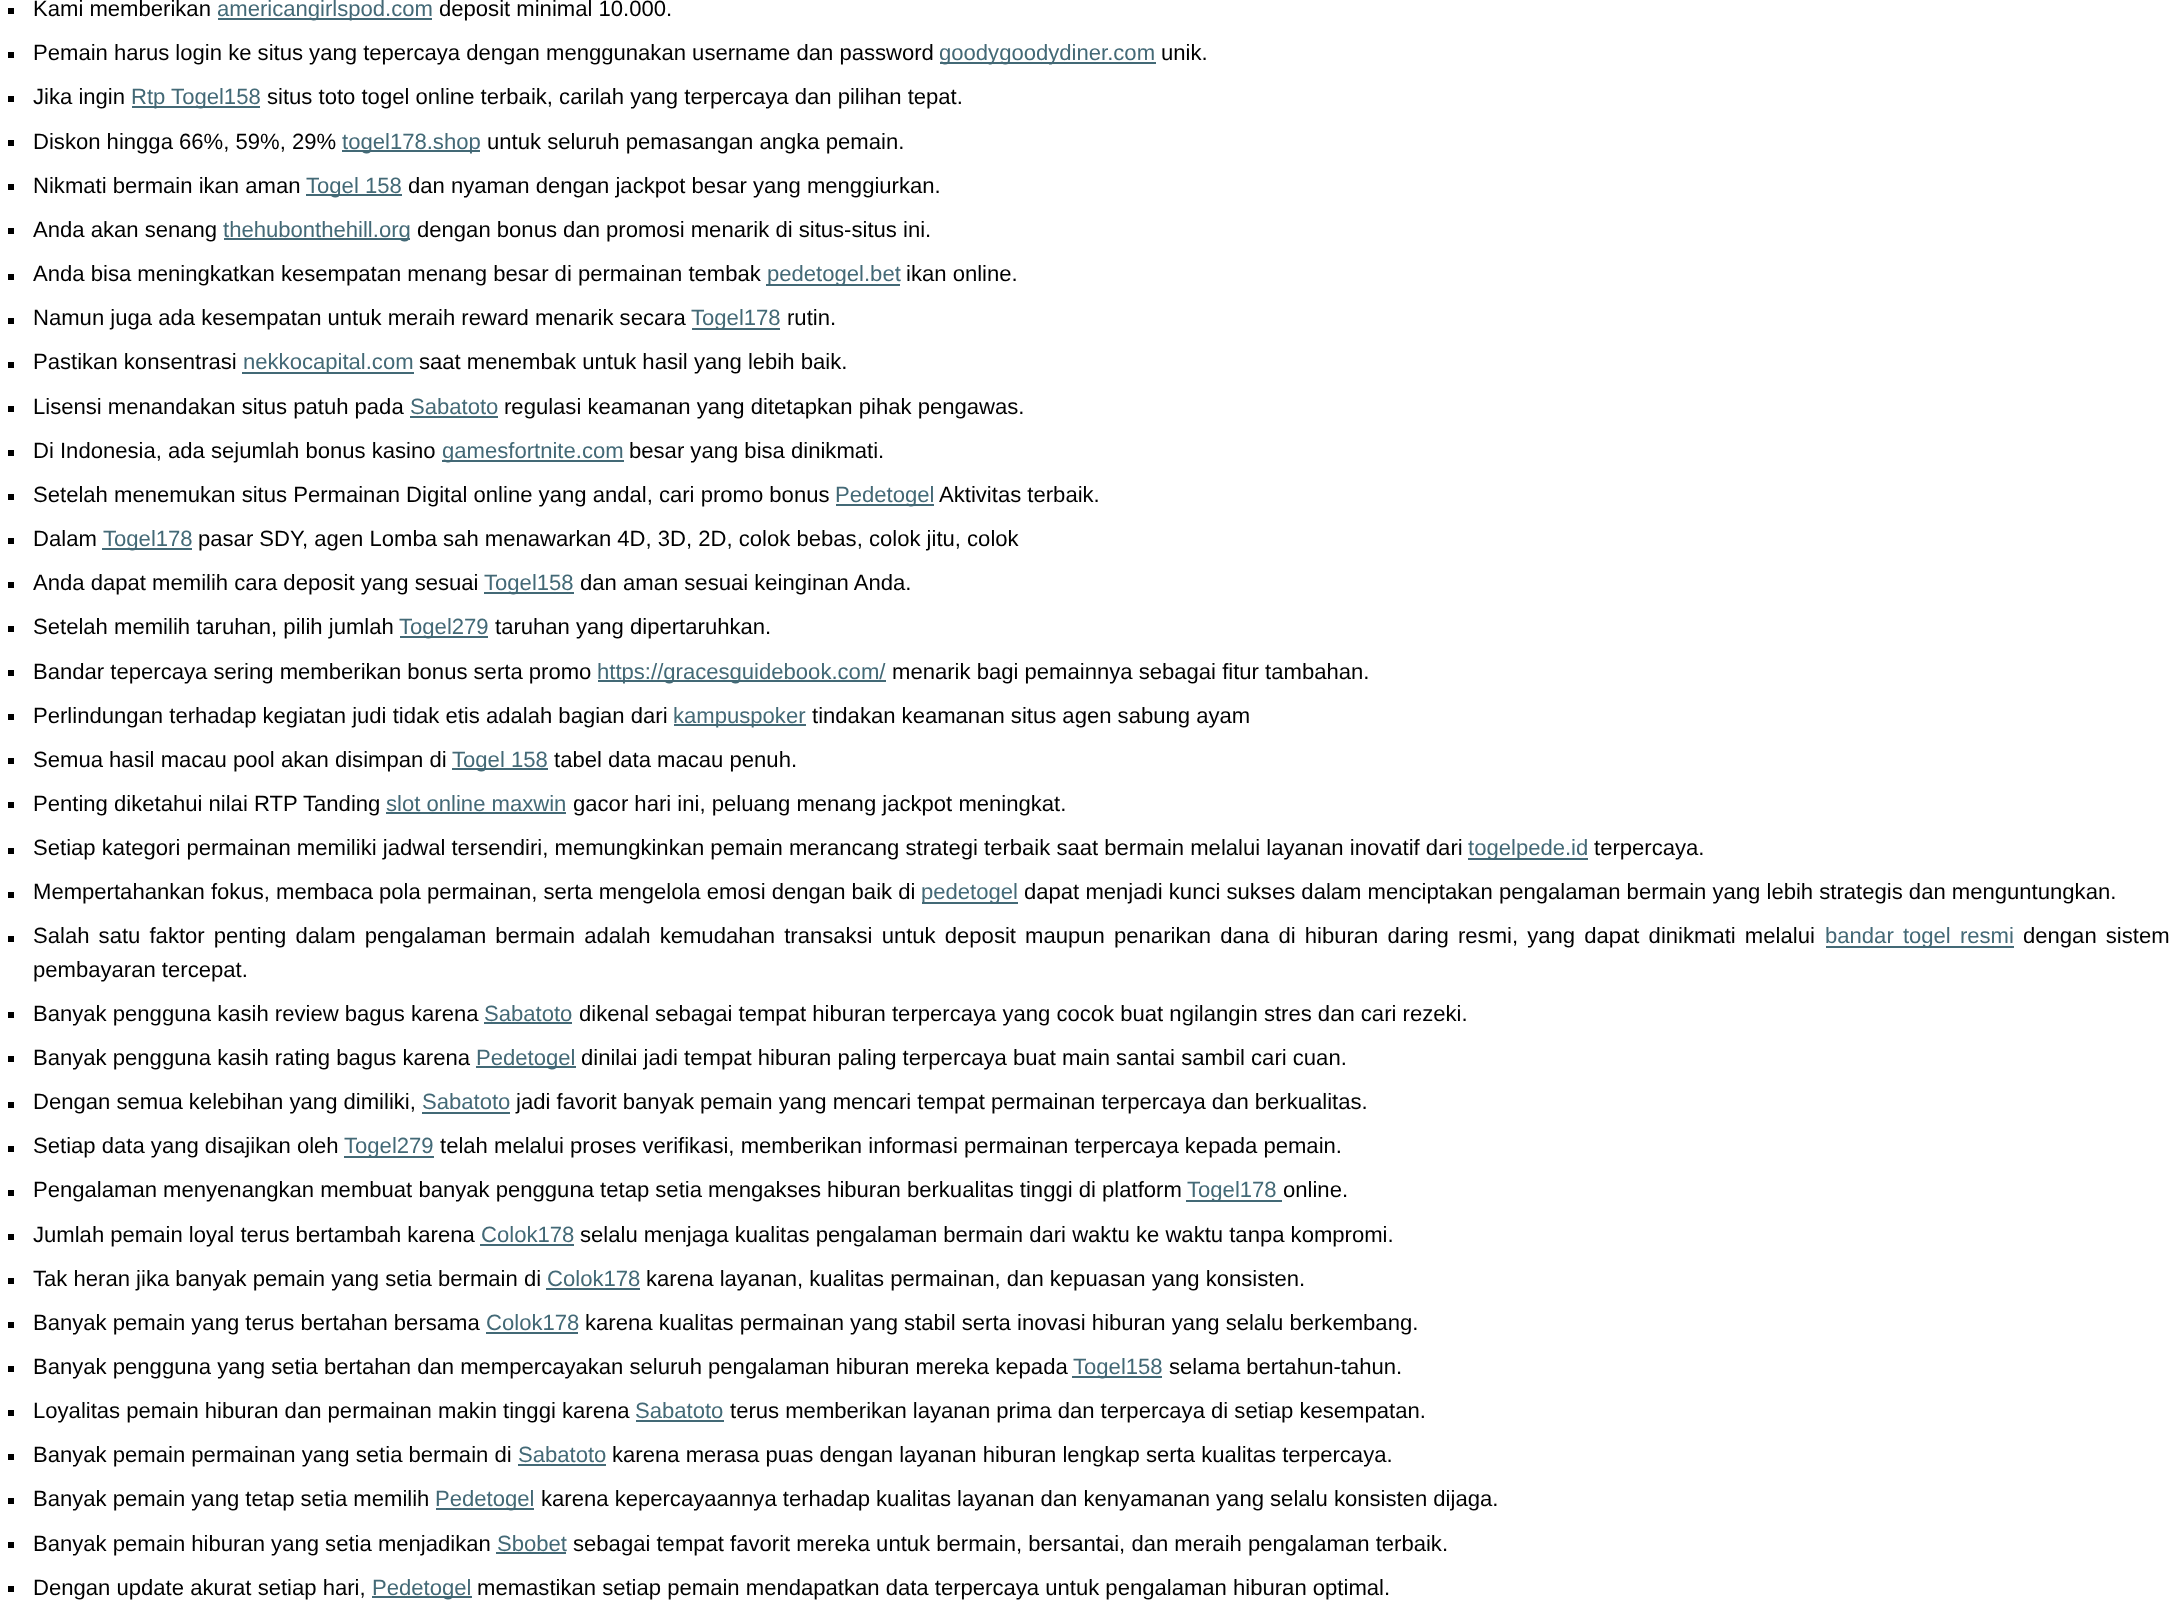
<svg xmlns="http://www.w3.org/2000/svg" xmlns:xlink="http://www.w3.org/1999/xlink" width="2170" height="1614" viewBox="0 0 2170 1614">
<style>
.cls-1{font:22.08px Liberation Sans;fill:#000000}
.cls-2{font:22.08px Liberation Sans;fill:#436976}
</style>
<rect width="100%" height="100%" fill="#ffffff"/>
<rect fill="#000000" x="8" y="8" width="6" height="6"/>
<rect fill="#436976" x="218" y="18" width="214" height="2"/>
<rect fill="#000000" x="8" y="52" width="6" height="6"/>
<rect fill="#436976" x="940" y="62" width="216" height="2"/>
<rect fill="#000000" x="8" y="96" width="6" height="6"/>
<rect fill="#436976" x="132" y="106" width="128" height="2"/>
<rect fill="#000000" x="8" y="140" width="6" height="6"/>
<rect fill="#436976" x="342" y="150" width="138" height="2"/>
<rect fill="#000000" x="8" y="184" width="6" height="6"/>
<rect fill="#436976" x="306" y="194" width="96" height="2"/>
<rect fill="#000000" x="8" y="228" width="6" height="6"/>
<rect fill="#436976" x="224" y="238" width="186" height="2"/>
<rect fill="#000000" x="8" y="274" width="6" height="6"/>
<rect fill="#436976" x="766" y="284" width="134" height="2"/>
<rect fill="#000000" x="8" y="318" width="6" height="6"/>
<rect fill="#436976" x="692" y="328" width="88" height="2"/>
<rect fill="#000000" x="8" y="362" width="6" height="6"/>
<rect fill="#436976" x="242" y="372" width="172" height="2"/>
<rect fill="#000000" x="8" y="406" width="6" height="6"/>
<rect fill="#436976" x="410" y="416" width="88" height="2"/>
<rect fill="#000000" x="8" y="450" width="6" height="6"/>
<rect fill="#436976" x="442" y="460" width="182" height="2"/>
<rect fill="#000000" x="8" y="494" width="6" height="6"/>
<rect fill="#436976" x="836" y="504" width="98" height="2"/>
<rect fill="#000000" x="8" y="538" width="6" height="6"/>
<rect fill="#436976" x="102" y="548" width="90" height="2"/>
<rect fill="#000000" x="8" y="582" width="6" height="6"/>
<rect fill="#436976" x="484" y="592" width="90" height="2"/>
<rect fill="#000000" x="8" y="626" width="6" height="6"/>
<rect fill="#436976" x="400" y="636" width="88" height="2"/>
<rect fill="#000000" x="8" y="670" width="6" height="6"/>
<rect fill="#436976" x="598" y="680" width="288" height="2"/>
<rect fill="#000000" x="8" y="714" width="6" height="6"/>
<rect fill="#436976" x="674" y="724" width="132" height="2"/>
<rect fill="#000000" x="8" y="758" width="6" height="6"/>
<rect fill="#436976" x="452" y="768" width="96" height="2"/>
<rect fill="#000000" x="8" y="802" width="6" height="6"/>
<rect fill="#436976" x="386" y="812" width="180" height="2"/>
<rect fill="#000000" x="8" y="848" width="6" height="6"/>
<rect fill="#436976" x="1468" y="858" width="120" height="2"/>
<rect fill="#000000" x="8" y="892" width="6" height="6"/>
<rect fill="#436976" x="922" y="902" width="96" height="2"/>
<rect fill="#000000" x="8" y="936" width="6" height="6"/>
<rect fill="#436976" x="1826" y="946" width="188" height="2"/>
<rect fill="#000000" x="8" y="1012" width="6" height="6"/>
<rect fill="#436976" x="484" y="1022" width="88" height="2"/>
<rect fill="#000000" x="8" y="1056" width="6" height="6"/>
<rect fill="#436976" x="476" y="1066" width="100" height="2"/>
<rect fill="#000000" x="8" y="1102" width="6" height="6"/>
<rect fill="#436976" x="422" y="1112" width="88" height="2"/>
<rect fill="#000000" x="8" y="1146" width="6" height="6"/>
<rect fill="#436976" x="344" y="1156" width="90" height="2"/>
<rect fill="#000000" x="8" y="1190" width="6" height="6"/>
<rect fill="#436976" x="1186" y="1200" width="96" height="2"/>
<rect fill="#000000" x="8" y="1234" width="6" height="6"/>
<rect fill="#436976" x="480" y="1244" width="94" height="2"/>
<rect fill="#000000" x="8" y="1278" width="6" height="6"/>
<rect fill="#436976" x="546" y="1288" width="94" height="2"/>
<rect fill="#000000" x="8" y="1322" width="6" height="6"/>
<rect fill="#436976" x="486" y="1332" width="92" height="2"/>
<rect fill="#000000" x="8" y="1366" width="6" height="6"/>
<rect fill="#436976" x="1072" y="1376" width="90" height="2"/>
<rect fill="#000000" x="8" y="1410" width="6" height="6"/>
<rect fill="#436976" x="636" y="1420" width="88" height="2"/>
<rect fill="#000000" x="8" y="1454" width="6" height="6"/>
<rect fill="#436976" x="518" y="1464" width="88" height="2"/>
<rect fill="#000000" x="8" y="1498" width="6" height="6"/>
<rect fill="#436976" x="436" y="1508" width="98" height="2"/>
<rect fill="#000000" x="8" y="1542" width="6" height="6"/>
<rect fill="#436976" x="496" y="1552" width="70" height="2"/>
<rect fill="#000000" x="8" y="1586" width="6" height="6"/>
<rect fill="#436976" x="372" y="1596" width="100" height="2"/>
<text class="cls-1" x="33" y="16">Kami memberikan</text>
<text class="cls-2" x="217" y="16">americangirlspod.com</text>
<text class="cls-1" x="439" y="16">deposit minimal 10.000.</text>
<text class="cls-1" x="33" y="60">Pemain harus login ke situs yang tepercaya dengan menggunakan username dan password</text>
<text class="cls-2" x="939" y="60">goodygoodydiner.com</text>
<text class="cls-1" x="1161" y="60">unik.</text>
<text class="cls-1" x="33" y="104">Jika ingin</text>
<text class="cls-2" x="131" y="104">Rtp Togel158</text>
<text class="cls-1" x="267" y="104">situs toto togel online terbaik, carilah yang terpercaya dan pilihan tepat.</text>
<text class="cls-1" x="33" y="149">Diskon hingga 66%, 59%, 29%</text>
<text class="cls-2" x="342" y="149">togel178.shop</text>
<text class="cls-1" x="487" y="149">untuk seluruh pemasangan angka pemain.</text>
<text class="cls-1" x="33" y="193">Nikmati bermain ikan aman</text>
<text class="cls-2" x="306" y="193">Togel 158</text>
<text class="cls-1" x="408" y="193">dan nyaman dengan jackpot besar yang menggiurkan.</text>
<text class="cls-1" x="33" y="237">Anda akan senang</text>
<text class="cls-2" x="223" y="237">thehubonthehill.org</text>
<text class="cls-1" x="417" y="237">dengan bonus dan promosi menarik di situs-situs ini.</text>
<text class="cls-1" x="33" y="281">Anda bisa meningkatkan kesempatan menang besar di permainan tembak</text>
<text class="cls-2" x="767" y="281">pedetogel.bet</text>
<text class="cls-1" x="906" y="281">ikan online.</text>
<text class="cls-1" x="33" y="325">Namun juga ada kesempatan untuk meraih reward menarik secara</text>
<text class="cls-2" x="691" y="325">Togel178</text>
<text class="cls-1" x="787" y="325">rutin.</text>
<text class="cls-1" x="33" y="369">Pastikan konsentrasi</text>
<text class="cls-2" x="243" y="369">nekkocapital.com</text>
<text class="cls-1" x="419" y="369">saat menembak untuk hasil yang lebih baik.</text>
<text class="cls-1" x="33" y="414">Lisensi menandakan situs patuh pada</text>
<text class="cls-2" x="410" y="414">Sabatoto</text>
<text class="cls-1" x="504" y="414">regulasi keamanan yang ditetapkan pihak pengawas.</text>
<text class="cls-1" x="33" y="458">Di Indonesia, ada sejumlah bonus kasino</text>
<text class="cls-2" x="442" y="458">gamesfortnite.com</text>
<text class="cls-1" x="629" y="458">besar yang bisa dinikmati.</text>
<text class="cls-1" x="33" y="502">Setelah menemukan situs Permainan Digital online yang andal, cari promo bonus</text>
<text class="cls-2" x="835" y="502">Pedetogel</text>
<text class="cls-1" x="939" y="502">Aktivitas terbaik.</text>
<text class="cls-1" x="33" y="546">Dalam</text>
<text class="cls-2" x="103" y="546">Togel178</text>
<text class="cls-1" x="198" y="546">pasar SDY, agen Lomba sah menawarkan 4D, 3D, 2D, colok bebas, colok jitu, colok</text>
<text class="cls-1" x="33" y="590">Anda dapat memilih cara deposit yang sesuai</text>
<text class="cls-2" x="484" y="590">Togel158</text>
<text class="cls-1" x="580" y="590">dan aman sesuai keinginan Anda.</text>
<text class="cls-1" x="33" y="634">Setelah memilih taruhan, pilih jumlah</text>
<text class="cls-2" x="399" y="634">Togel279</text>
<text class="cls-1" x="495" y="634">taruhan yang dipertaruhkan.</text>
<text class="cls-1" x="33" y="679">Bandar tepercaya sering memberikan bonus serta promo</text>
<text class="cls-2" x="597" y="679">https://gracesguidebook.com/</text>
<text class="cls-1" x="892" y="679">menarik bagi pemainnya sebagai fitur tambahan.</text>
<text class="cls-1" x="33" y="723">Perlindungan terhadap kegiatan judi tidak etis adalah bagian dari</text>
<text class="cls-2" x="673" y="723">kampuspoker</text>
<text class="cls-1" x="812" y="723">tindakan keamanan situs agen sabung ayam</text>
<text class="cls-1" x="33" y="767">Semua hasil macau pool akan disimpan di</text>
<text class="cls-2" x="452" y="767">Togel 158</text>
<text class="cls-1" x="554" y="767">tabel data macau penuh.</text>
<text class="cls-1" x="33" y="811">Penting diketahui nilai RTP Tanding</text>
<text class="cls-2" x="386" y="811">slot online maxwin</text>
<text class="cls-1" x="573" y="811">gacor hari ini, peluang menang jackpot meningkat.</text>
<text class="cls-1" x="33" y="855">Setiap kategori permainan memiliki jadwal tersendiri, memungkinkan pemain merancang strategi terbaik saat bermain melalui layanan inovatif dari</text>
<text class="cls-2" x="1468" y="855">togelpede.id</text>
<text class="cls-1" x="1594" y="855">terpercaya.</text>
<text class="cls-1" x="33" y="899">Mempertahankan fokus, membaca pola permainan, serta mengelola emosi dengan baik di</text>
<text class="cls-2" x="921" y="899">pedetogel</text>
<text class="cls-1" x="1024" y="899">dapat menjadi kunci sukses dalam menciptakan pengalaman bermain yang lebih strategis dan menguntungkan.</text>
<text class="cls-1" x="33" y="943" word-spacing="3">Salah satu faktor penting dalam pengalaman bermain adalah kemudahan transaksi untuk deposit maupun penarikan dana di hiburan daring resmi, yang dapat dinikmati melalui</text>
<text class="cls-2" x="1825" y="943" word-spacing="3">bandar togel resmi</text>
<text class="cls-1" x="2023" y="943" word-spacing="3">dengan sistem</text>
<text class="cls-1"><tspan x="33" y="977">pembayaran tercepat.</tspan><tspan x="33" y="1021">Banyak pengguna kasih review bagus karena</tspan></text>
<text class="cls-2" x="484" y="1021">Sabatoto</text>
<text class="cls-1" x="579" y="1021">dikenal sebagai tempat hiburan terpercaya yang cocok buat ngilangin stres dan cari rezeki.</text>
<text class="cls-1" x="33" y="1065">Banyak pengguna kasih rating bagus karena</text>
<text class="cls-2" x="476" y="1065">Pedetogel</text>
<text class="cls-1" x="581" y="1065">dinilai jadi tempat hiburan paling terpercaya buat main santai sambil cari cuan.</text>
<text class="cls-1" x="33" y="1109">Dengan semua kelebihan yang dimiliki,</text>
<text class="cls-2" x="422" y="1109">Sabatoto</text>
<text class="cls-1" x="516" y="1109">jadi favorit banyak pemain yang mencari tempat permainan terpercaya dan berkualitas.</text>
<text class="cls-1" x="33" y="1153">Setiap data yang disajikan oleh</text>
<text class="cls-2" x="344" y="1153">Togel279</text>
<text class="cls-1" x="440" y="1153">telah melalui proses verifikasi, memberikan informasi permainan terpercaya kepada pemain.</text>
<text class="cls-1" x="33" y="1197">Pengalaman menyenangkan membuat banyak pengguna tetap setia mengakses hiburan berkualitas tinggi di platform</text>
<text class="cls-2" x="1187" y="1197">Togel178</text>
<text class="cls-1" x="1283" y="1197">online.</text>
<text class="cls-1" x="33" y="1242">Jumlah pemain loyal terus bertambah karena</text>
<text class="cls-2" x="481" y="1242">Colok178</text>
<text class="cls-1" x="580" y="1242">selalu menjaga kualitas pengalaman bermain dari waktu ke waktu tanpa kompromi.</text>
<text class="cls-1" x="33" y="1286">Tak heran jika banyak pemain yang setia bermain di</text>
<text class="cls-2" x="547" y="1286">Colok178</text>
<text class="cls-1" x="646" y="1286">karena layanan, kualitas permainan, dan kepuasan yang konsisten.</text>
<text class="cls-1" x="33" y="1330">Banyak pemain yang terus bertahan bersama</text>
<text class="cls-2" x="486" y="1330">Colok178</text>
<text class="cls-1" x="585" y="1330">karena kualitas permainan yang stabil serta inovasi hiburan yang selalu berkembang.</text>
<text class="cls-1" x="33" y="1374">Banyak pengguna yang setia bertahan dan mempercayakan seluruh pengalaman hiburan mereka kepada</text>
<text class="cls-2" x="1073" y="1374">Togel158</text>
<text class="cls-1" x="1169" y="1374">selama bertahun-tahun.</text>
<text class="cls-1" x="33" y="1418">Loyalitas pemain hiburan dan permainan makin tinggi karena</text>
<text class="cls-2" x="635" y="1418">Sabatoto</text>
<text class="cls-1" x="730" y="1418">terus memberikan layanan prima dan terpercaya di setiap kesempatan.</text>
<text class="cls-1" x="33" y="1462">Banyak pemain permainan yang setia bermain di</text>
<text class="cls-2" x="518" y="1462">Sabatoto</text>
<text class="cls-1" x="612" y="1462">karena merasa puas dengan layanan hiburan lengkap serta kualitas terpercaya.</text>
<text class="cls-1" x="33" y="1506">Banyak pemain yang tetap setia memilih</text>
<text class="cls-2" x="435" y="1506">Pedetogel</text>
<text class="cls-1" x="541" y="1506">karena kepercayaannya terhadap kualitas layanan dan kenyamanan yang selalu konsisten dijaga.</text>
<text class="cls-1" x="33" y="1551">Banyak pemain hiburan yang setia menjadikan</text>
<text class="cls-2" x="497" y="1551">Sbobet</text>
<text class="cls-1" x="573" y="1551">sebagai tempat favorit mereka untuk bermain, bersantai, dan meraih pengalaman terbaik.</text>
<text class="cls-1" x="33" y="1595">Dengan update akurat setiap hari,</text>
<text class="cls-2" x="372" y="1595">Pedetogel</text>
<text class="cls-1" x="477" y="1595">memastikan setiap pemain mendapatkan data terpercaya untuk pengalaman hiburan optimal.</text>
</svg>
